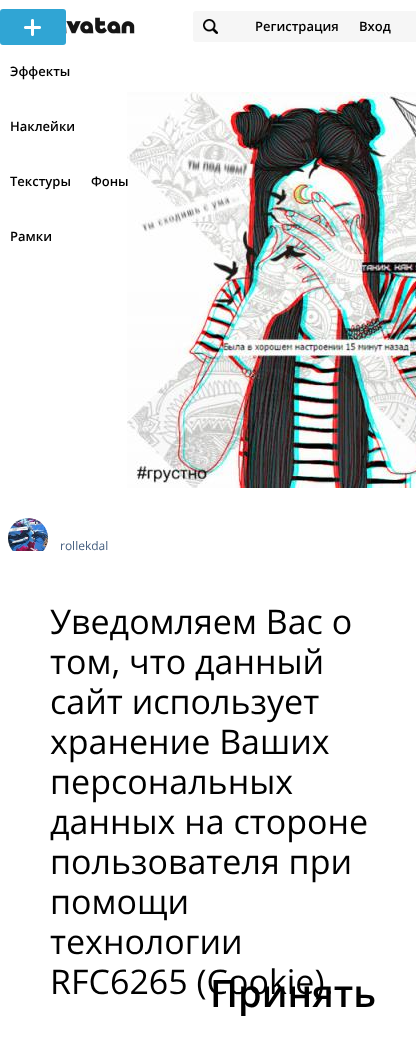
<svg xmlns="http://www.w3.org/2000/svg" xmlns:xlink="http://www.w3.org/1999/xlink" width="416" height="1051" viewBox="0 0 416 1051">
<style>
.cls-1{font:600 13px Open Sans;fill:#000000}
.cls-2{font:12px Open Sans;fill:#445e7f}
.cls-3{font:34px Open Sans;fill:#000000}
.cls-4{font:600 38px Open Sans;fill:#000000}
</style>
<rect width="100%" height="100%" fill="#ffffff"/>
<rect fill="#000000" fill-opacity="0.3" filter="blur(0.5px)" x="0" y="0" width="416" height="55"/>
<rect fill="#ffffff" x="0" y="0" width="416" height="55"/>
<image xlink:href="image0.png" x="66" y="13" width="69" height="29"/>
<rect fill="#f6f6f6" x="193" y="11" width="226" height="31" rx="3"/>
<image xlink:href="image1.png" x="203" y="19" width="15" height="15"/>
<rect fill="#30a5d4" x="0" y="9" width="66" height="36" rx="3"/>
<image xlink:href="image2.png" x="24" y="19" width="17" height="17"/>
<image xlink:href="image3.png" x="127" y="92" width="289" height="396"/>
<image xlink:href="image4.png" x="8" y="518" width="40" height="33"/>
<text class="cls-1" x="255" y="31">Регистрация</text>
<text class="cls-1" x="359" y="31">Вход</text>
<text class="cls-1" x="10" y="76">Эффекты</text>
<text class="cls-1" x="10" y="131">Наклейки</text>
<text class="cls-1" x="10" y="186">Текстуры</text>
<text class="cls-1" x="91" y="186">Фоны</text>
<text class="cls-1" x="10" y="241">Рамки</text>
<text class="cls-2" x="60" y="550">rollekdal</text>
<text class="cls-3"><tspan x="50" y="634">Уведомляем Вас о</tspan><tspan x="50" y="674">том, что данный</tspan><tspan x="50" y="714">сайт использует</tspan><tspan x="50" y="754">хранение Ваших</tspan><tspan x="50" y="794">персональных</tspan><tspan x="50" y="834">данных на стороне</tspan><tspan x="50" y="874">пользователя при</tspan><tspan x="50" y="914">помощи</tspan><tspan x="50" y="954">технологии</tspan><tspan x="50" y="994">RFC6265 (Cookie).</tspan></text>
<text class="cls-4" x="210" y="1007">Принять</text>
</svg>
